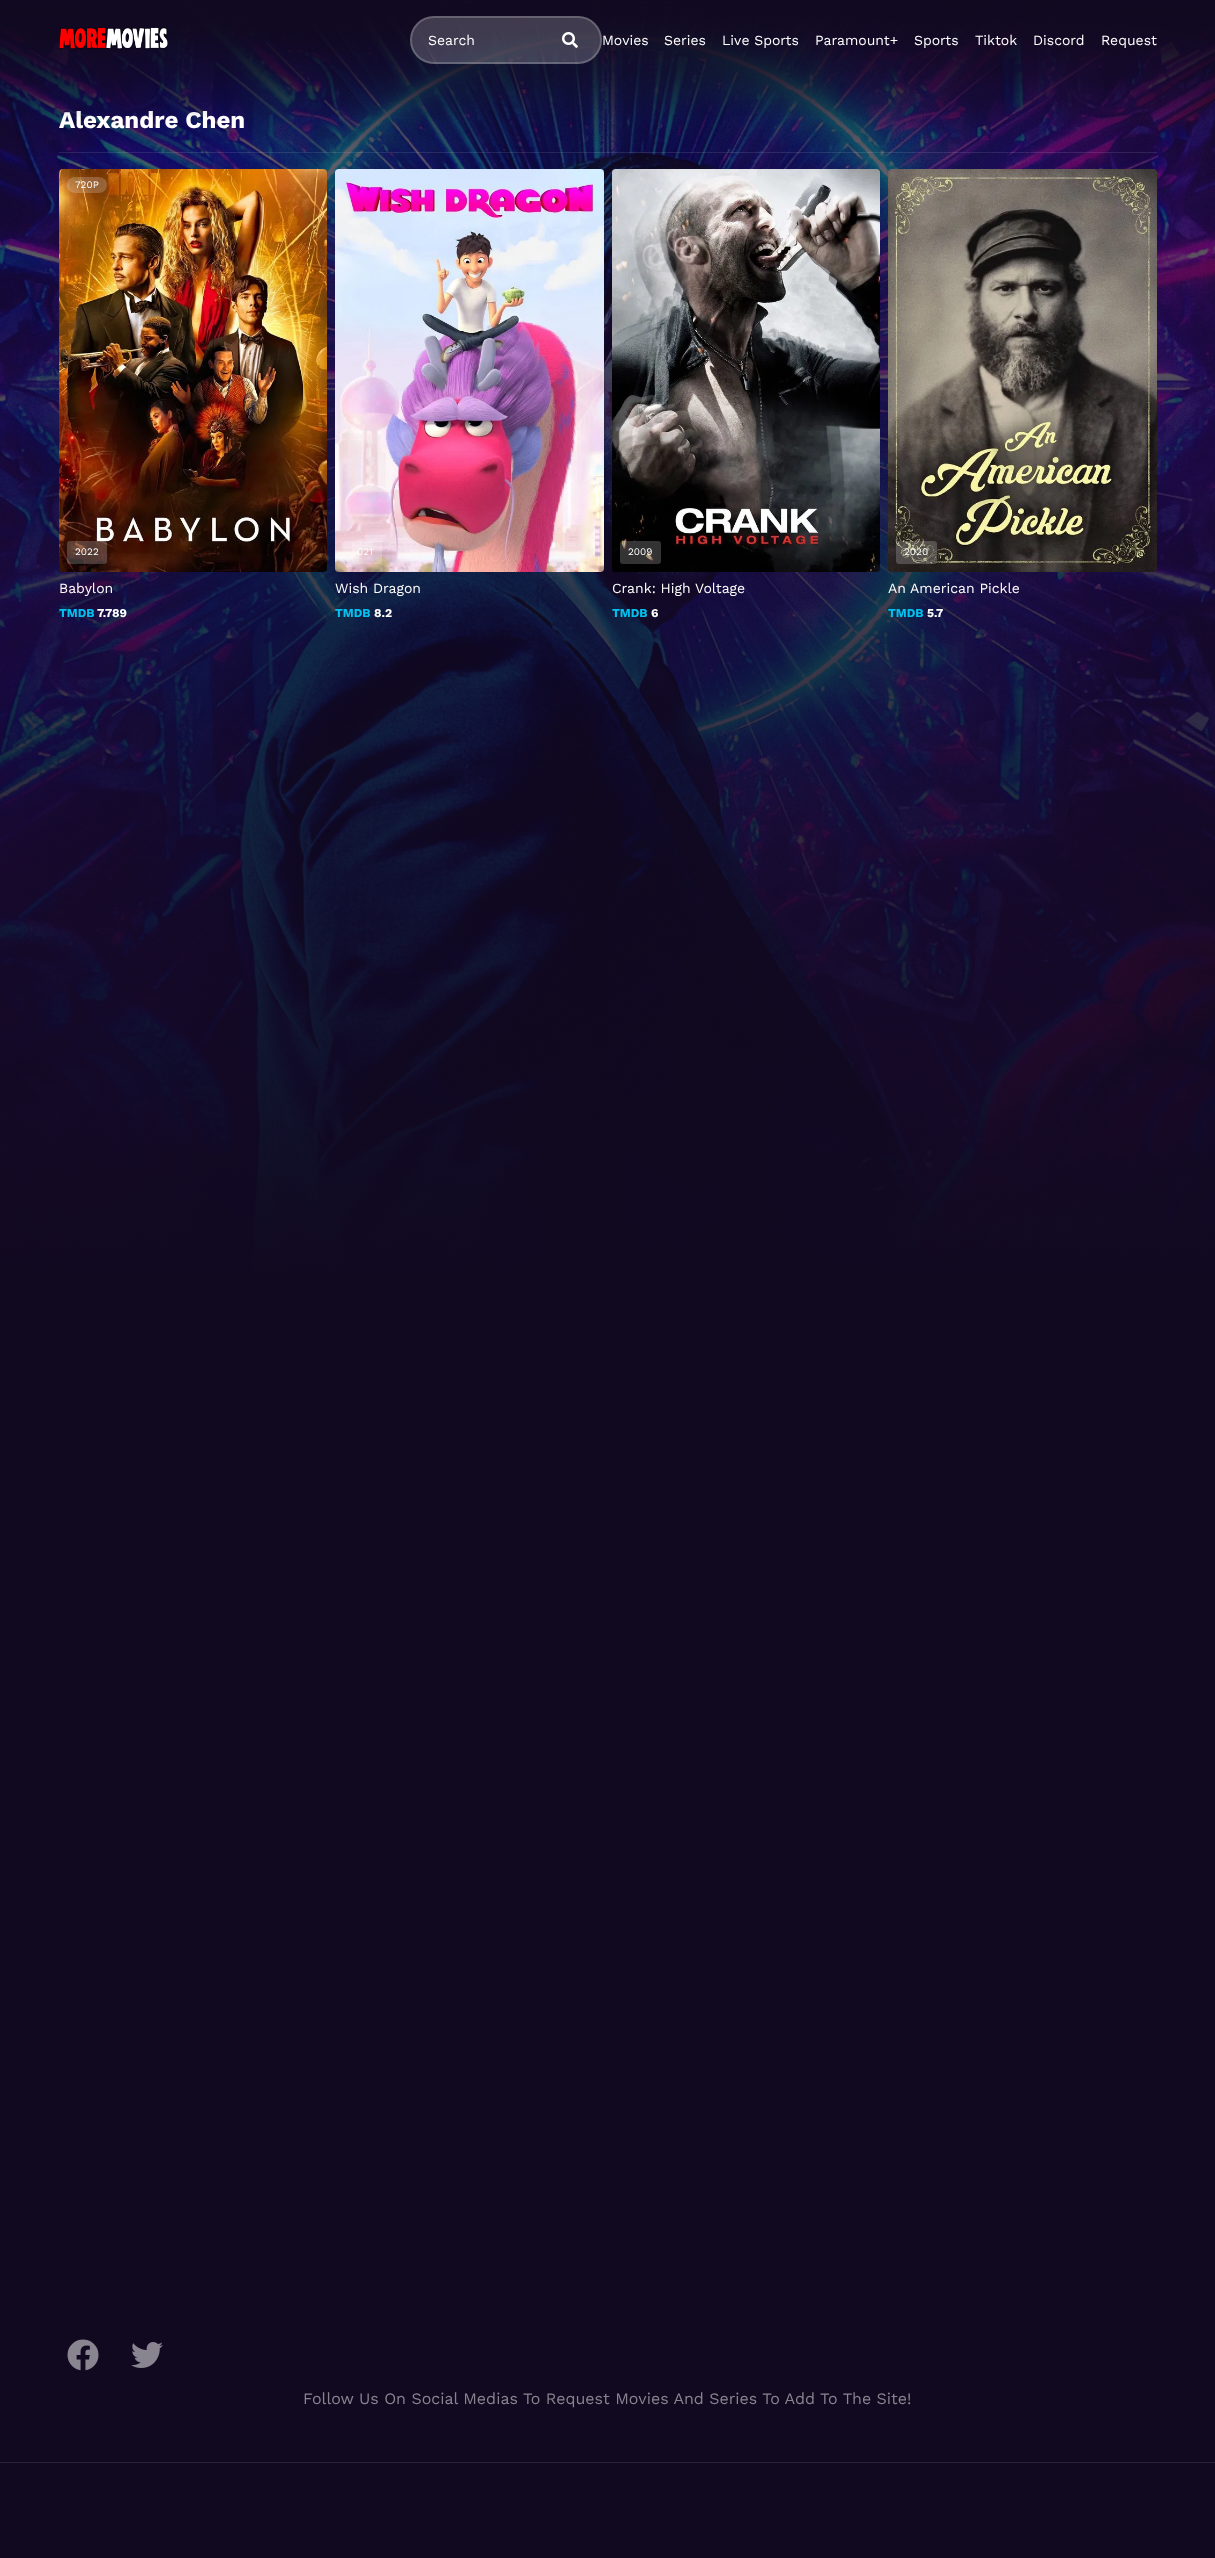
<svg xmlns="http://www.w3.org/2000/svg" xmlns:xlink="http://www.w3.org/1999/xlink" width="1215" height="2558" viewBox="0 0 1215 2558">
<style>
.cls-1{font:bold 24px Work Sans;fill:#ffffff}
.cls-2{font:14px Work Sans;fill:#ffffff}
.cls-3{font:10px Work Sans;fill:#ffffff}
.cls-4{font:bold 12px Work Sans;fill:#03c1ef}
.cls-5{font:bold 12px Work Sans;fill:#ffffff}
.cls-6{font:16px Work Sans;fill:#888490}
</style>
<defs>
<linearGradient id="g1" gradientUnits="userSpaceOnUse" x1="608" y1="0" x2="608" y2="160"><stop offset="0" stop-color="#110920"/><stop offset="1" stop-color="#110920" stop-opacity="0"/></linearGradient>
<linearGradient id="g2" gradientUnits="userSpaceOnUse" x1="607" y1="0" x2="608" y2="1279"><stop offset="0" stop-color="#110920" stop-opacity="0"/><stop offset="1" stop-color="#110920"/></linearGradient>
<linearGradient id="g3" gradientUnits="userSpaceOnUse" x1="608" y1="0" x2="608" y2="120"><stop offset="0" stop-color="#110920"/><stop offset="1" stop-color="#110920" stop-opacity="0"/></linearGradient>
</defs>
<rect width="100%" height="100%" fill="#110920"/>
<image xlink:href="image0.png" x="0" y="1" width="1215" height="1271"/>
<rect fill="url(#g1)" x="0" y="1" width="1215" height="156"/>
<rect fill="url(#g2)" x="0" y="68" width="1215" height="1204"/>
<rect fill="#ffffff" fill-opacity="0.1" x="59" y="152" width="1098" height="1"/>
<image xlink:href="image3.png" x="59" y="169" width="268" height="403"/>
<rect fill="#ffffff" fill-opacity="0.2" x="67" y="177" width="40" height="16" rx="8"/>
<rect fill="#ffffff" fill-opacity="0.2" x="67" y="541" width="40" height="23" rx="3"/>
<image xlink:href="image4.png" x="335" y="169" width="269" height="403"/>
<rect fill="#ffffff" fill-opacity="0.2" x="343" y="541" width="39" height="23" rx="3"/>
<image xlink:href="image5.png" x="612" y="169" width="268" height="403"/>
<rect fill="#ffffff" fill-opacity="0.2" x="620" y="541" width="41" height="23" rx="3"/>
<image xlink:href="image6.png" x="888" y="169" width="269" height="403"/>
<rect fill="#ffffff" fill-opacity="0.2" x="896" y="541" width="41" height="23" rx="3"/>
<image xlink:href="image7.png" x="67" y="2339" width="32" height="32"/>
<image xlink:href="image8.png" x="131" y="2342" width="32" height="26"/>
<rect fill="#292236" x="0" y="2462" width="1215" height="1"/>
<text class="cls-1" x="59" y="128">Alexandre Chen</text>
<rect fill="url(#g3)" x="0" y="4" width="1215" height="113"/>
<text class="cls-2" x="1101" y="45">Request</text>
<text class="cls-2" x="1033" y="45">Discord</text>
<text class="cls-2" x="975" y="45">Tiktok</text>
<text class="cls-2" x="914" y="45">Sports</text>
<text class="cls-2" x="815" y="45">Paramount+</text>
<text class="cls-2" x="722" y="45">Live Sports</text>
<text class="cls-2" x="664" y="45">Series</text>
<text class="cls-2" x="602" y="45">Movies</text>
<rect fill="#ffffff" fill-opacity="0.2" x="410" y="16" width="192" height="48" rx="24"/>
<rect fill="none" stroke="#ffffff" stroke-opacity="0.2" stroke-width="2" x="411" y="17" width="190" height="46" rx="23"/>
<image xlink:href="image2.png" x="562" y="32" width="16" height="16"/>
<text class="cls-2" x="428" y="45">Search</text>
<image xlink:href="image1.png" x="59" y="27" width="109" height="23"/>
<text class="cls-3" x="75" y="188">720P</text>
<text class="cls-3" x="75" y="555">2022</text>
<text class="cls-2" x="59" y="593">Babylon</text>
<text class="cls-4" x="59" y="617">TMDB</text>
<text class="cls-5" x="97" y="617">7.789</text>
<text class="cls-3" x="357" y="555">021</text>
<text class="cls-2" x="335" y="593">Wish Dragon</text>
<text class="cls-4" x="335" y="617">TMDB</text>
<text class="cls-5" x="374" y="617">8.2</text>
<text class="cls-3" x="628" y="555">2009</text>
<text class="cls-2" x="612" y="593">Crank: High Voltage</text>
<text class="cls-4" x="612" y="617">TMDB</text>
<text class="cls-5" x="651" y="617">6</text>
<text class="cls-3" x="904" y="555">2020</text>
<text class="cls-2" x="888" y="593">An American Pickle</text>
<text class="cls-4" x="888" y="617">TMDB</text>
<text class="cls-5" x="927" y="617">5.7</text>
<text class="cls-6" x="303" y="2404">Follow Us On Social Medias To Request Movies And Series To Add To The Site!</text>
</svg>
